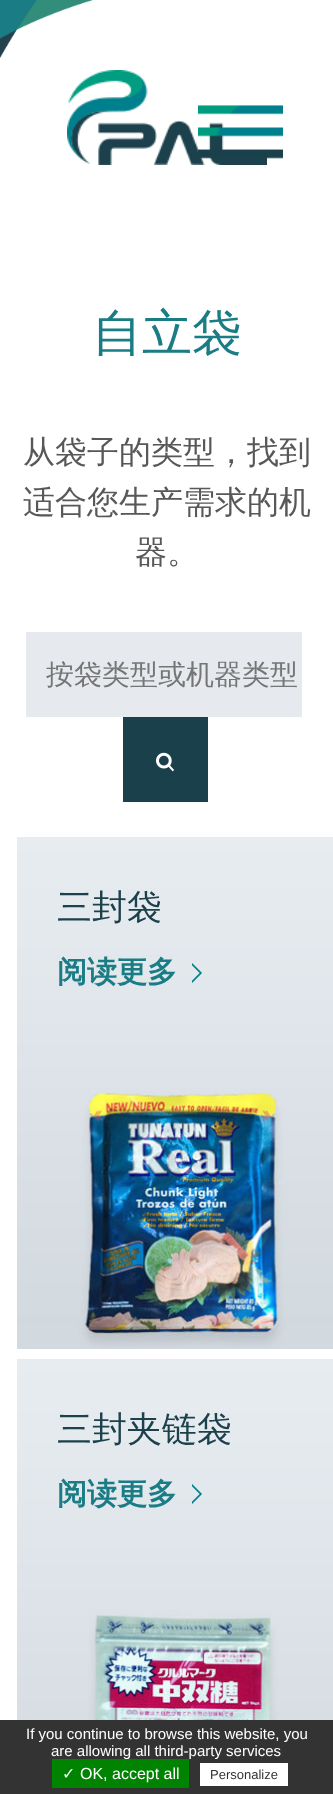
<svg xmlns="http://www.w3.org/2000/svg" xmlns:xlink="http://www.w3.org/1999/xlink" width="333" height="1794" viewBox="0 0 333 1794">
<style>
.cls-1{font:500 50px WenQuanYi Zen Hei;fill:#1a7d85}
.cls-2{font:500 32px WenQuanYi Zen Hei;fill:#595757}
.cls-3{font:500 28px WenQuanYi Zen Hei;fill:#757575}
.cls-4{font:500 35px WenQuanYi Zen Hei;fill:#1c414c}
.cls-5{font:bold 30px WenQuanYi Zen Hei;fill:#1a7d85}
.cls-6{font:15px Liberation Sans;fill:#ffffff}
.cls-7{font:16px DejaVu Sans;fill:#ffffff}
.cls-8{font:16px Liberation Sans;fill:#ffffff}
.cls-9{font:13px Liberation Sans;fill:#333333}
</style>
<rect width="100%" height="100%" fill="#ffffff"/>
<image xlink:href="image0.png" x="0" y="0" width="93" height="58"/>
<image xlink:href="image1.png" x="67" y="70" width="200" height="95"/>
<image xlink:href="image2.png" x="198" y="105" width="85" height="54"/>
<rect fill="#e6eaef" x="26" y="632" width="276" height="85"/>
<rect fill="#1a404c" x="123" y="717" width="85" height="85"/>
<image xlink:href="image3.png" x="156" y="752" width="18" height="20"/>
<image xlink:href="image4.png" x="17" y="837" width="316" height="512"/>
<image xlink:href="image5.png" x="192" y="963" width="10" height="20"/>
<image xlink:href="image6.png" x="17" y="1359" width="316" height="361"/>
<image xlink:href="image7.png" x="192" y="1484" width="10" height="20"/>
<rect fill="#333333" x="0" y="1720" width="333" height="74"/>
<rect fill="#ffffff" x="200" y="1763" width="88" height="23"/>
<text class="cls-1" x="92" y="350">自立袋</text>
<text class="cls-2"><tspan x="23" y="463">从袋子的类型，找到</tspan><tspan x="23" y="513">适合您生产需求的机</tspan></text>
<text class="cls-2" x="135" y="563">器。</text>
<text class="cls-3" x="46" y="684">按袋类型或机器类型</text>
<text class="cls-4" x="57" y="919">三封袋</text>
<text class="cls-5" x="57" y="982">阅读更多</text>
<text class="cls-4" x="57" y="1441">三封夹链袋</text>
<text class="cls-5" x="57" y="1504">阅读更多</text>
<text class="cls-6" x="26" y="1739">If you continue to browse this website, you</text>
<text class="cls-6" x="51" y="1756">are allowing all third-party services</text>
<rect fill="#008300" x="52" y="1759" width="137" height="29"/>
<text class="cls-7" x="62" y="1779">✓</text>
<text class="cls-8" x="80" y="1779">OK, accept all</text>
<text class="cls-9" x="210" y="1779">Personalize</text>
</svg>
